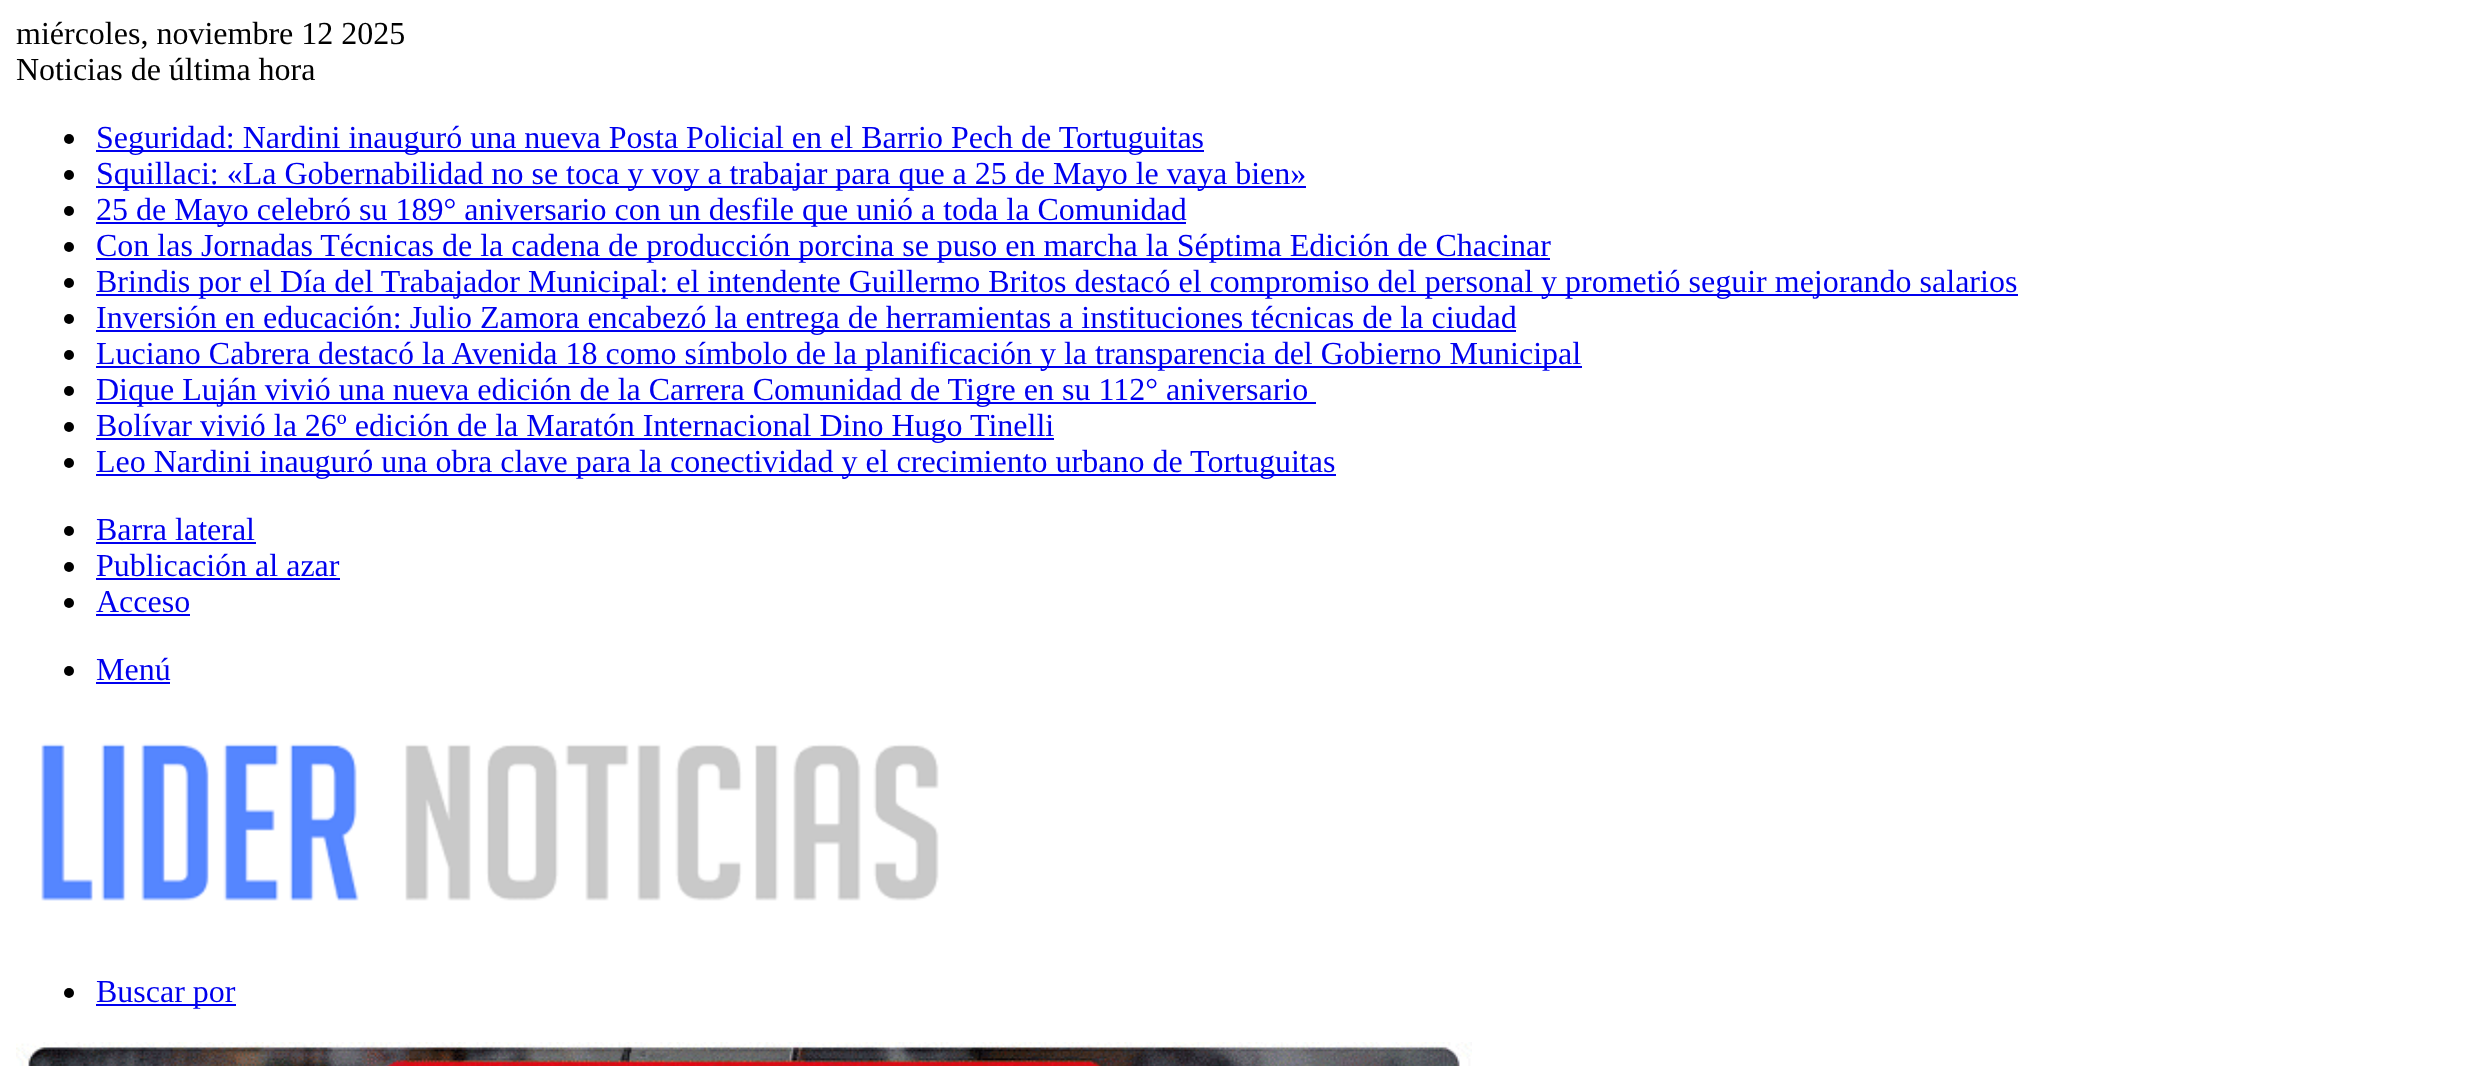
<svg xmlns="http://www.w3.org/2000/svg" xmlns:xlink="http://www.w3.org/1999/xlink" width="2468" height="1066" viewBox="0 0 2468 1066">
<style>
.cls-1{font:32px Liberation Serif;fill:#000000}
.cls-2{font:32px Liberation Serif;fill:#0000ee}
</style>
<rect width="100%" height="100%" fill="#ffffff"/>
<circle fill="#000000" cx="69" cy="139" r="5"/>
<rect fill="#0000ee" x="96" y="150" width="1108" height="2"/>
<circle fill="#000000" cx="69" cy="175" r="5"/>
<rect fill="#0000ee" x="96" y="186" width="1210" height="2"/>
<circle fill="#000000" cx="69" cy="211" r="5"/>
<rect fill="#0000ee" x="96" y="222" width="1090" height="2"/>
<circle fill="#000000" cx="69" cy="247" r="5"/>
<rect fill="#0000ee" x="96" y="258" width="1454" height="2"/>
<circle fill="#000000" cx="69" cy="283" r="5"/>
<rect fill="#0000ee" x="96" y="294" width="1922" height="2"/>
<circle fill="#000000" cx="69" cy="319" r="5"/>
<rect fill="#0000ee" x="96" y="330" width="1420" height="2"/>
<circle fill="#000000" cx="69" cy="355" r="5"/>
<rect fill="#0000ee" x="96" y="366" width="1486" height="2"/>
<circle fill="#000000" cx="69" cy="391" r="5"/>
<rect fill="#0000ee" x="96" y="402" width="1220" height="2"/>
<circle fill="#000000" cx="69" cy="427" r="5"/>
<rect fill="#0000ee" x="96" y="438" width="958" height="2"/>
<circle fill="#000000" cx="69" cy="463" r="5"/>
<rect fill="#0000ee" x="96" y="474" width="1240" height="2"/>
<circle fill="#000000" cx="69" cy="531" r="5"/>
<rect fill="#0000ee" x="96" y="542" width="160" height="2"/>
<circle fill="#000000" cx="69" cy="567" r="5"/>
<rect fill="#0000ee" x="96" y="578" width="244" height="2"/>
<circle fill="#000000" cx="69" cy="603" r="5"/>
<rect fill="#0000ee" x="96" y="614" width="94" height="2"/>
<circle fill="#000000" cx="69" cy="671" r="5"/>
<rect fill="#0000ee" x="96" y="682" width="74" height="2"/>
<image xlink:href="image0.png" x="41" y="743" width="898" height="158"/>
<circle fill="#000000" cx="69" cy="993" r="5"/>
<rect fill="#0000ee" x="96" y="1004" width="140" height="2"/>
<image xlink:href="image1.png" x="16" y="1042" width="1456" height="24"/>
<text class="cls-1"><tspan x="16" y="44">miércoles, noviembre 12 2025</tspan><tspan x="16" y="80">Noticias de última hora</tspan></text>
<text class="cls-2"><tspan x="96" y="148">Seguridad: Nardini inauguró una nueva Posta Policial en el Barrio Pech de Tortuguitas</tspan><tspan x="96" y="184">Squillaci: «La Gobernabilidad no se toca y voy a trabajar para que a 25 de Mayo le vaya bien»</tspan><tspan x="96" y="220">25 de Mayo celebró su 189° aniversario con un desfile que unió a toda la Comunidad</tspan><tspan x="96" y="256">Con las Jornadas Técnicas de la cadena de producción porcina se puso en marcha la Séptima Edición de Chacinar</tspan><tspan x="96" y="292">Brindis por el Día del Trabajador Municipal: el intendente Guillermo Britos destacó el compromiso del personal y prometió seguir mejorando salarios</tspan><tspan x="96" y="328">Inversión en educación: Julio Zamora encabezó la entrega de herramientas a instituciones técnicas de la ciudad</tspan><tspan x="96" y="364">Luciano Cabrera destacó la Avenida 18 como símbolo de la planificación y la transparencia del Gobierno Municipal</tspan><tspan x="96" y="400">Dique Luján vivió una nueva edición de la Carrera Comunidad de Tigre en su 112° aniversario</tspan><tspan x="96" y="436">Bolívar vivió la 26º edición de la Maratón Internacional Dino Hugo Tinelli</tspan><tspan x="96" y="472">Leo Nardini inauguró una obra clave para la conectividad y el crecimiento urbano de Tortuguitas</tspan></text>
<text class="cls-2"><tspan x="96" y="540">Barra lateral</tspan><tspan x="96" y="576">Publicación al azar</tspan><tspan x="96" y="612">Acceso</tspan></text>
<text class="cls-2" x="96" y="680">Menú</text>
<text class="cls-2" x="96" y="1002">Buscar por</text>
</svg>
